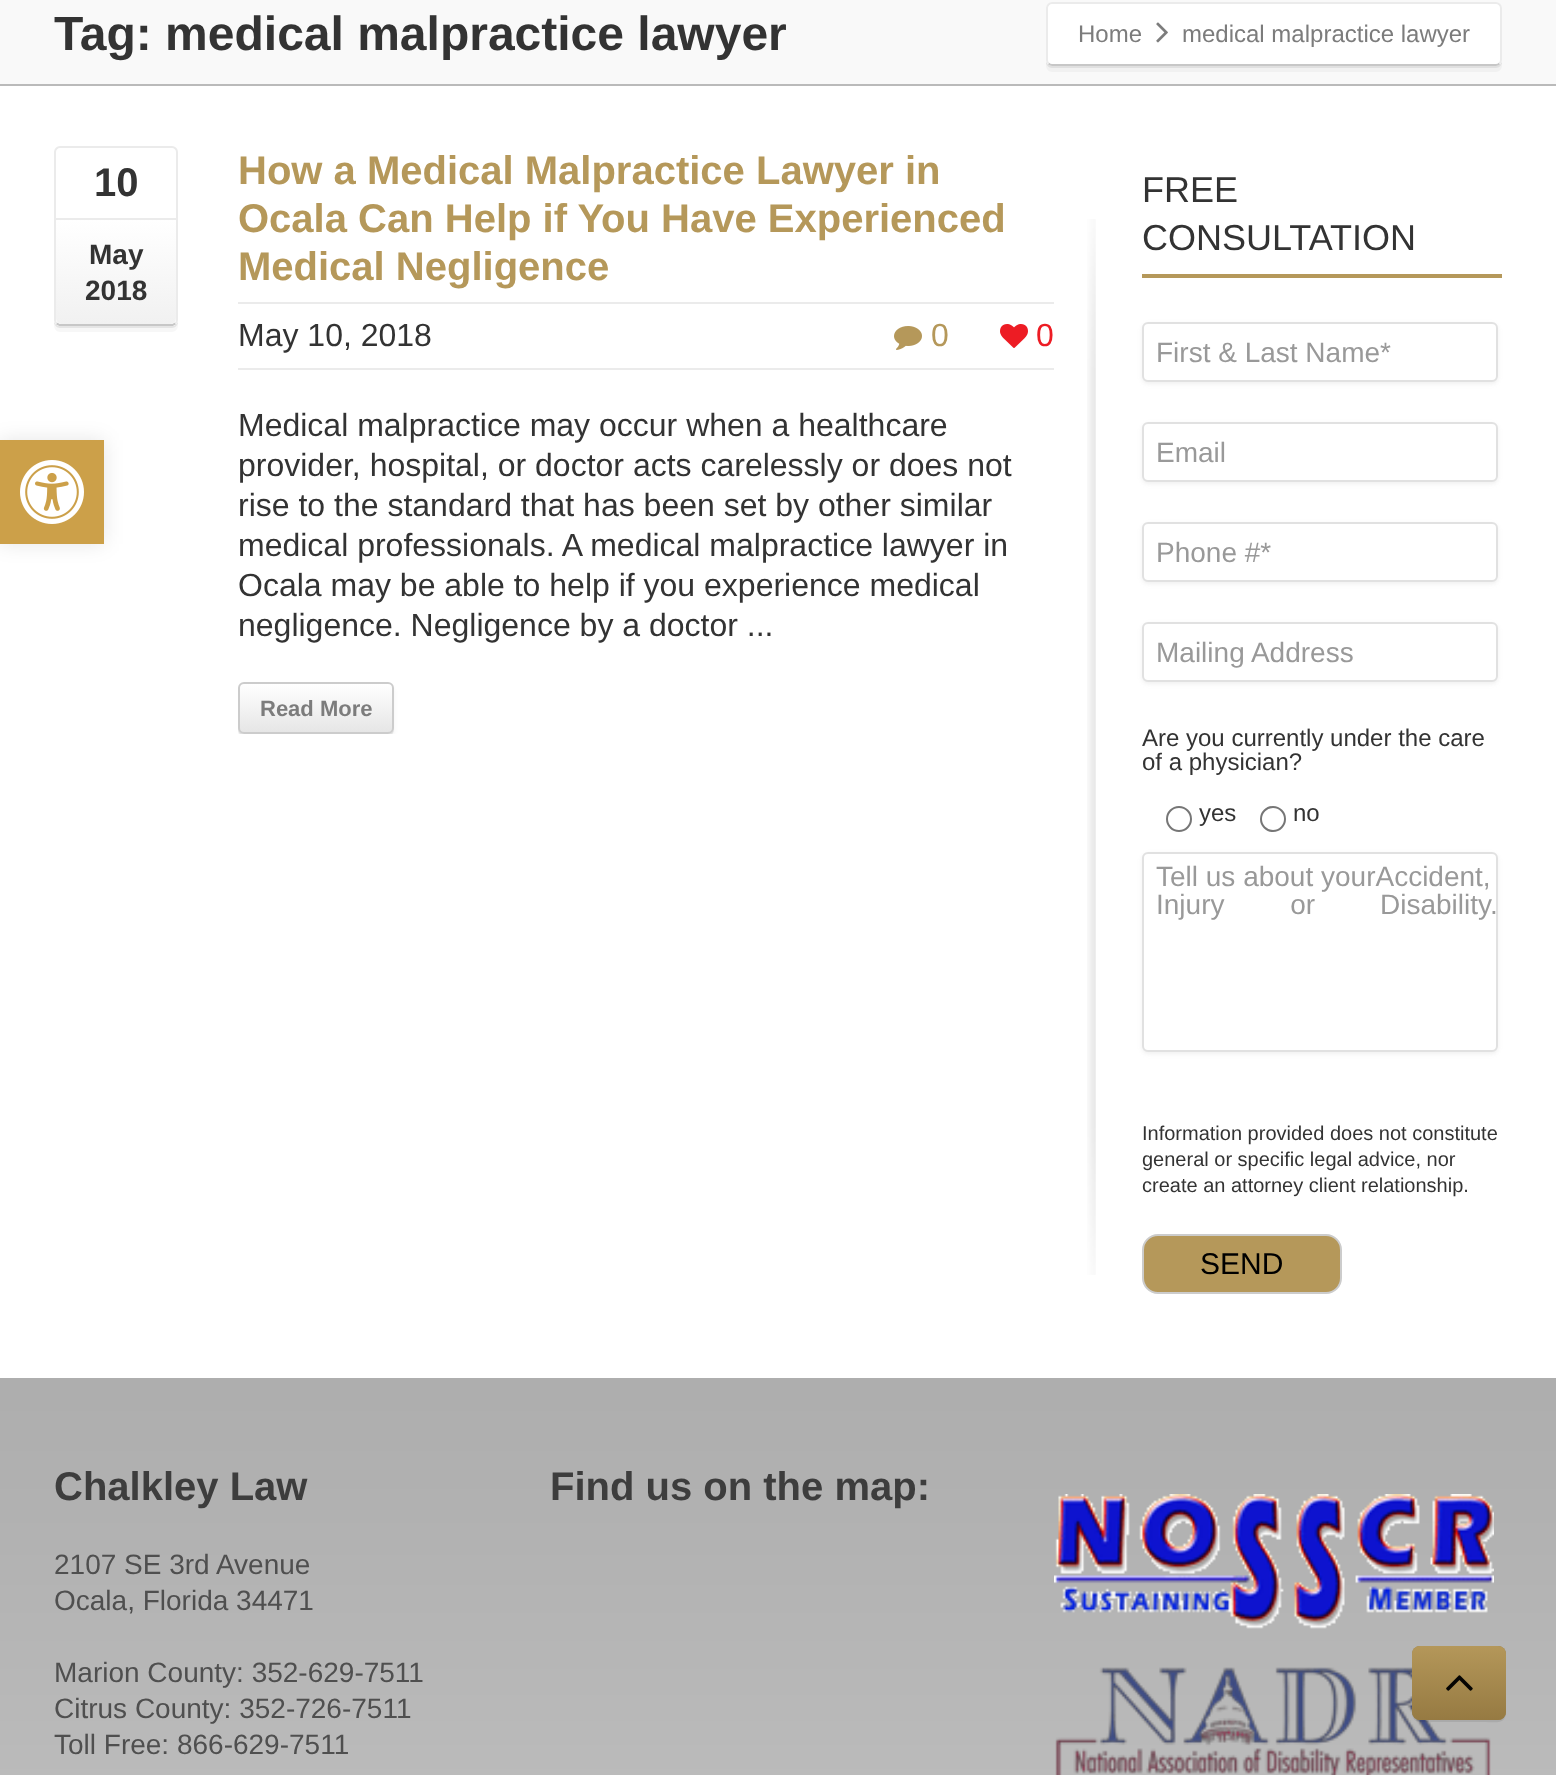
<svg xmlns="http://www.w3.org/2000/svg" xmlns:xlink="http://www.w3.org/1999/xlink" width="1556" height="1775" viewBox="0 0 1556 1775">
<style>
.cls-1{font:bold 48px Liberation Sans;fill:#333333}
.cls-2{font:24px Liberation Sans;fill:#7c7c7c}
.cls-3{font:bold 40px Liberation Sans;fill:#333333}
.cls-4{font:bold 28px Liberation Sans;fill:#333333}
.cls-5{font:bold 40px Liberation Sans;fill:#b5985a}
.cls-6{font:32px Liberation Sans;fill:#333333}
.cls-7{font:32px Liberation Sans;fill:#b5985a}
.cls-8{font:32px Liberation Sans;fill:#ed1c24}
.cls-9{font:bold 22px Liberation Sans;fill:#7c7c7c}
.cls-10{font:36px Liberation Sans;fill:#333333}
.cls-11{font:28px Liberation Sans;fill:#999999}
.cls-12{font:24px Liberation Sans;fill:#333333}
.cls-13{font:20px Liberation Sans;fill:#333333}
.cls-14{font:30px Liberation Sans;fill:#000000}
.cls-15{font:bold 40px Liberation Sans;fill:#3d3d3d}
.cls-16{font:28px Liberation Sans;fill:#4f4f4f}
</style>
<defs>
<linearGradient id="g1" gradientUnits="userSpaceOnUse" x1="116" y1="220" x2="116" y2="324"><stop offset="0" stop-color="#ffffff"/><stop offset="1" stop-color="#f1f1f1"/></linearGradient>
<clipPath id="clip1"><rect x="238" y="146" width="816" height="588"/></clipPath>
<clipPath id="clip2"><rect x="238" y="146" width="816" height="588"/></clipPath>
<clipPath id="clip3"><rect x="238" y="682" width="156" height="52" rx="6"/></clipPath>
<linearGradient id="g2" gradientUnits="userSpaceOnUse" x1="316" y1="684" x2="316" y2="732"><stop offset="0" stop-color="#ffffff"/><stop offset="1" stop-color="#e6e6e6"/></linearGradient>
<linearGradient id="g3" gradientUnits="userSpaceOnUse" x1="1459" y1="1646" x2="1459" y2="1720"><stop offset="0" stop-color="#b5985a" stop-opacity="0.97"/><stop offset="1" stop-color="#967a42" stop-opacity="0.97"/></linearGradient>
</defs>
<rect width="100%" height="100%" fill="#ffffff"/>
<rect fill="#f9f9f9" x="0" y="0" width="1556" height="84"/>
<rect fill="#bababa" x="0" y="84" width="1556" height="2"/>
<path fill="#e8e8e8" d="M1046 60V62C1046 65 1049 68 1052 68H1496C1499 68 1502 65 1502 62V60C1502 63 1499 66 1496 66H1052C1049 66 1046 63 1046 60Z"/>
<path fill="#000000" fill-opacity="0.03" d="M1046 60V66C1046 69 1049 72 1052 72H1496C1499 72 1502 69 1502 66V60C1502 63 1499 66 1496 66H1052C1049 66 1046 63 1046 60Z"/>
<rect fill="#ffffff" x="1046" y="2" width="456" height="64" rx="6"/>
<path fill="none" stroke="#000000" stroke-opacity="0.22" stroke-width="2" d="M1499.5 63.5C1498.5 64.5 1497.5 65 1496 65H1052C1050.5 65 1049.5 64.5 1048.5 63.5"/>
<path fill="none" stroke="#ebebeb" stroke-width="2" d="M1048.5 63.5C1047.5 62.5 1047 61.5 1047 60V8C1047 6.5 1047.5 5.5 1048.5 4.5C1049.5 3.5 1050.5 3 1052 3H1496C1497.5 3 1498.5 3.5 1499.5 4.5C1500.5 5.5 1501 6.5 1501 8V60C1501 61.5 1500.5 62.5 1499.5 63.5"/>
<image xlink:href="image0.png" x="1156" y="22" width="12" height="21"/>
<path fill="#ededed" d="M54 320V322C54 325 57 328 60 328H172C175 328 178 325 178 322V320C178 323 175 326 172 326H60C57 326 54 323 54 320Z"/>
<path fill="#000000" fill-opacity="0.03" d="M54 320V326C54 329 57 332 60 332H172C175 332 178 329 178 326V320C178 323 175 326 172 326H60C57 326 54 323 54 320Z"/>
<rect fill="#ffffff" x="54" y="146" width="124" height="180" rx="6"/>
<path fill="none" stroke="#c7c7c7" stroke-width="2" d="M175.5 323.5L172.5 325H59.5L56.5 323.5"/>
<path fill="none" stroke="#ebebeb" stroke-width="2" d="M56.5 323.5C55.5 322.5 55 321.5 55 320V152C55 150.5 55.5 149.5 56.5 148.5C57.5 147.5 58.5 147 60 147H172C173.5 147 174.5 147.5 175.5 148.5C176.5 149.5 177 150.5 177 152V320C177 321.5 176.5 322.5 175.5 323.5"/>
<path fill="url(#g1)" d="M56 220H176V318C176 321.5 173.5 324 170 324H62C58.5 324 56 321.5 56 318Z"/>
<rect fill="#ebebeb" x="56" y="218" width="120" height="2"/>
<rect fill="#ebebeb" x="238" y="302" width="816" height="2"/>
<rect fill="#ebebeb" x="238" y="368" width="816" height="2"/>
<image xlink:href="image1.png" x="894" y="326" width="28" height="24"/>
<image xlink:href="image2.png" x="1000" y="324" width="28" height="24"/>
<g clip-path="url(#clip1)">
<path fill="#ebebeb" d="M238 728V730C238 733 241 736 244 736H388C391 736 394 733 394 730V728C394 731 391 734 388 734H244C241 734 238 731 238 728Z"/>
</g>
<g clip-path="url(#clip2)">
<rect fill="#000000" fill-opacity="0.05" filter="blur(2px)" x="238" y="686" width="156" height="52" rx="6"/>
</g>
<g clip-path="url(#clip3)">
<rect fill="url(#g2)" x="238" y="684" width="156" height="48"/>
</g>
<rect fill="none" stroke="#cccccc" stroke-width="2" x="239" y="683" width="154" height="50" rx="5"/>
<image xlink:href="image3.png" x="1087" y="219" width="9" height="527"/>
<image xlink:href="image4.png" x="1087" y="746" width="9" height="529"/>
<rect fill="#b5985a" x="1142" y="274" width="360" height="4"/>
<rect fill="#b4b4b4" fill-opacity="0.2" filter="blur(2px)" x="1142" y="324" width="356" height="60" rx="6"/>
<rect fill="#ffffff" stroke="#e1e1e1" stroke-width="2" x="1143" y="323" width="354" height="58" rx="5"/>
<rect fill="#b4b4b4" fill-opacity="0.2" filter="blur(2px)" x="1142" y="424" width="356" height="60" rx="6"/>
<rect fill="#ffffff" stroke="#e1e1e1" stroke-width="2" x="1143" y="423" width="354" height="58" rx="5"/>
<rect fill="#b4b4b4" fill-opacity="0.2" filter="blur(2px)" x="1142" y="524" width="356" height="60" rx="6"/>
<rect fill="#ffffff" stroke="#e1e1e1" stroke-width="2" x="1143" y="523" width="354" height="58" rx="5"/>
<rect fill="#b4b4b4" fill-opacity="0.2" filter="blur(2px)" x="1142" y="624" width="356" height="60" rx="6"/>
<rect fill="#ffffff" stroke="#e1e1e1" stroke-width="2" x="1143" y="623" width="354" height="58" rx="5"/>
<circle fill="none" stroke="#767676" stroke-width="2" cx="1179" cy="819" r="12"/>
<circle fill="none" stroke="#767676" stroke-width="2" cx="1273" cy="819" r="12"/>
<rect fill="#b4b4b4" fill-opacity="0.2" filter="blur(2px)" x="1142" y="854" width="356" height="200" rx="6"/>
<rect fill="#ffffff" stroke="#e1e1e1" stroke-width="2" x="1143" y="853" width="354" height="198" rx="5"/>
<rect fill="#b5985a" stroke="#cccccc" stroke-width="2" x="1143" y="1235" width="198" height="58" rx="15"/>
<image xlink:href="image5.png" x="0" y="1378" width="1556" height="397"/>
<image xlink:href="image6.png" x="1054" y="1494" width="440" height="135"/>
<image xlink:href="image7.png" x="1055" y="1667" width="436" height="108"/>
<rect fill="#000000" fill-opacity="0.1" filter="blur(10px)" x="0" y="440" width="104" height="104"/>
<rect fill="#cca049" x="0" y="440" width="104" height="104"/>
<image xlink:href="image8.png" x="20" y="460" width="64" height="64"/>
<path fill="#000000" fill-opacity="0.08" d="M1412 1712C1412 1725 1423 1722 1433 1722H1485C1495 1722 1506 1725 1506 1712C1506 1716 1502 1720 1498 1720H1420C1416 1720 1412 1716 1412 1712Z"/>
<rect fill="#967a42" fill-opacity="0.97" x="1412" y="1646" width="94" height="74" rx="8"/>
<rect fill="url(#g3)" x="1412" y="1646" width="94" height="74" rx="8"/>
<image xlink:href="image9.png" x="1446" y="1675" width="27" height="16"/>
<text class="cls-1" x="54" y="50">Tag: medical malpractice lawyer</text>
<text class="cls-2" x="1078" y="42">Home</text>
<text class="cls-2" x="1182" y="42">medical malpractice lawyer</text>
<text class="cls-3" x="94" y="196">10</text>
<text class="cls-4" x="89" y="264">May</text>
<text class="cls-4" x="85" y="300">2018</text>
<text class="cls-5"><tspan x="238" y="184">How a Medical Malpractice Lawyer in</tspan><tspan x="238" y="232">Ocala Can Help if You Have Experienced</tspan><tspan x="238" y="280">Medical Negligence</tspan></text>
<text class="cls-6" x="238" y="346">May 10, 2018</text>
<text class="cls-7" x="931" y="346">0</text>
<text class="cls-8" x="1036" y="346">0</text>
<text class="cls-6"><tspan x="238" y="436">Medical malpractice may occur when a healthcare</tspan><tspan x="238" y="476">provider, hospital, or doctor acts carelessly or does not</tspan><tspan x="238" y="516">rise to the standard that has been set by other similar</tspan><tspan x="238" y="556">medical professionals. A medical malpractice lawyer in</tspan><tspan x="238" y="596">Ocala may be able to help if you experience medical</tspan><tspan x="238" y="636">negligence. Negligence by a doctor ...</tspan></text>
<text class="cls-9" x="260" y="716">Read More</text>
<text class="cls-10"><tspan x="1142" y="202">FREE</tspan><tspan x="1142" y="250">CONSULTATION</tspan></text>
<text class="cls-11" x="1156" y="362">First &amp; Last Name*</text>
<text class="cls-11" x="1156" y="462">Email</text>
<text class="cls-11" x="1156" y="562">Phone #*</text>
<text class="cls-11" x="1156" y="662">Mailing Address</text>
<text class="cls-12"><tspan x="1142" y="746">Are you currently under the care</tspan><tspan x="1142" y="770">of a physician?</tspan></text>
<text class="cls-12" x="1199" y="821">yes</text>
<text class="cls-12" x="1293" y="821">no</text>
<text class="cls-11"><tspan x="1156" y="886">Tell us about yourAccident,</tspan><tspan x="1156" y="914" word-spacing="58">Injury or</tspan></text>
<text class="cls-11" x="1380" y="914">Disability.</text>
<text class="cls-13"><tspan x="1142" y="1140">Information provided does not constitute</tspan><tspan x="1142" y="1166">general or specific legal advice, nor</tspan><tspan x="1142" y="1192">create an attorney client relationship.</tspan></text>
<text class="cls-14" x="1200" y="1274">SEND</text>
<text class="cls-15" x="54" y="1500">Chalkley Law</text>
<text class="cls-16"><tspan x="54" y="1574">2107 SE 3rd Avenue</tspan><tspan x="54" y="1610">Ocala, Florida 34471</tspan></text>
<text class="cls-16"><tspan x="54" y="1682">Marion County: 352-629-7511</tspan><tspan x="54" y="1718">Citrus County: 352-726-7511</tspan><tspan x="54" y="1754">Toll Free: 866-629-7511</tspan></text>
<text class="cls-15" x="550" y="1500">Find us on the map:</text>
</svg>
